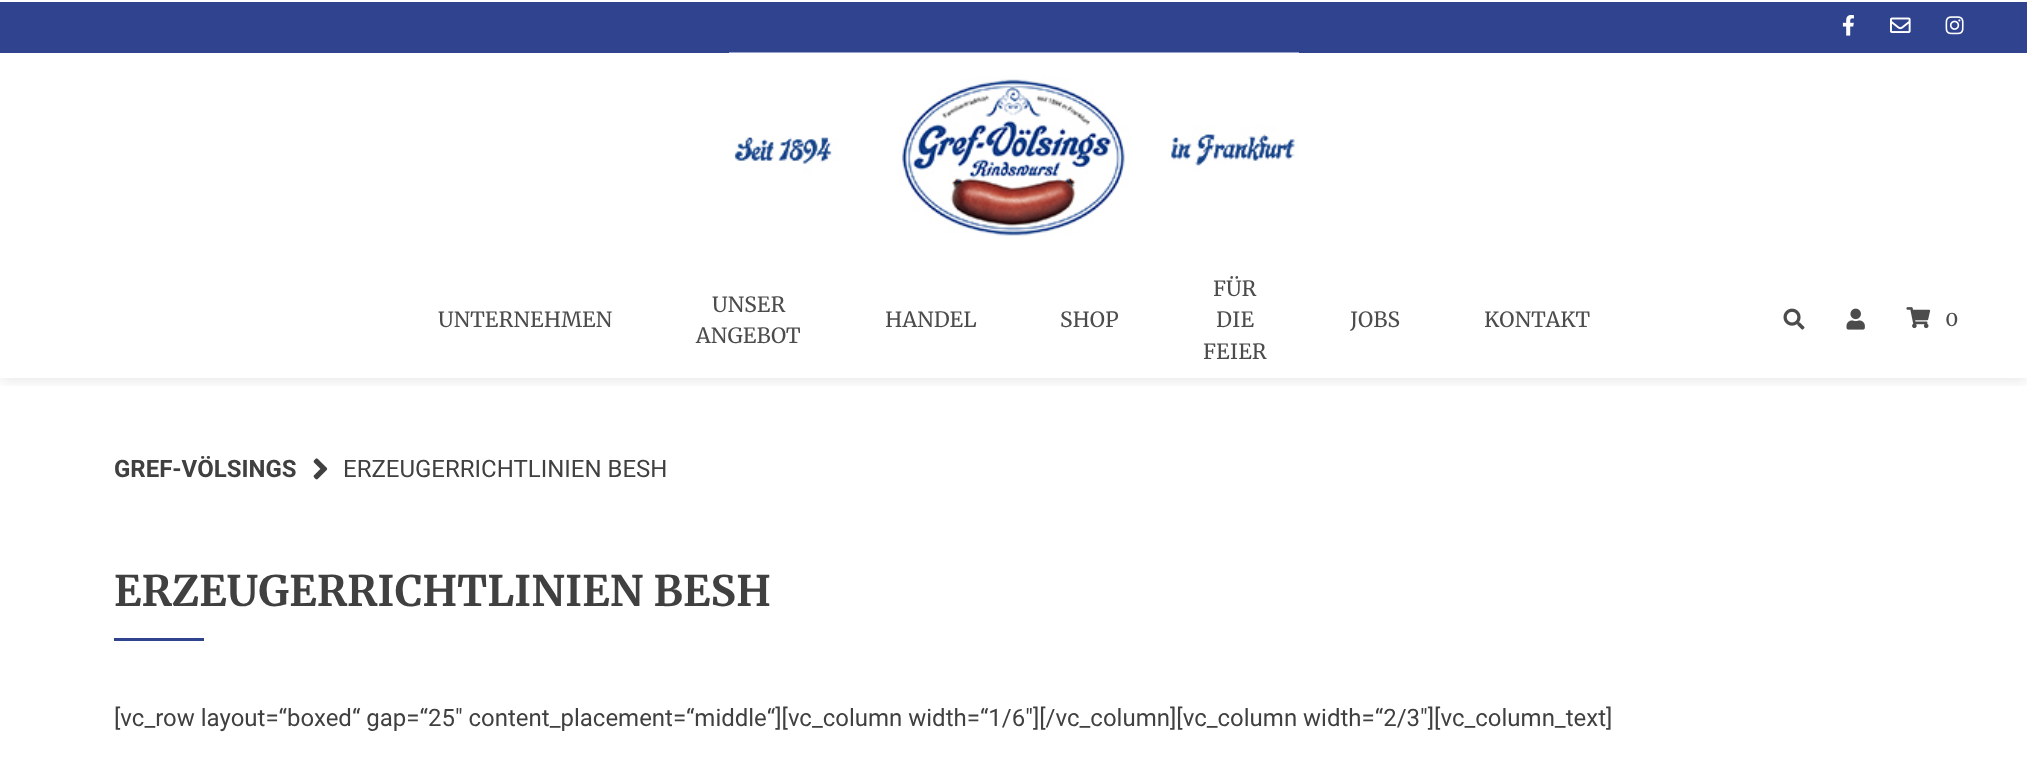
<svg xmlns="http://www.w3.org/2000/svg" xmlns:xlink="http://www.w3.org/1999/xlink" width="2027" height="760" viewBox="0 0 2027 760">
<style>
.cls-1{font:21px Merriweather;fill:#4c4c4c}
.cls-2{font:bold 24px Roboto;fill:#404040}
.cls-3{font:24px Roboto;fill:#404040}
.cls-4{font:bold 42px Merriweather;fill:#404040}
</style>
<defs>
<clipPath id="clip1"><rect x="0" y="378" width="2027" height="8"/></clipPath>
</defs>
<rect width="100%" height="100%" fill="#ffffff"/>
<g clip-path="url(#clip1)">
<rect fill="#000000" fill-opacity="0.1" filter="blur(7.5px)" x="0" y="2" width="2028" height="378"/>
</g>
<rect fill="#30438f" x="0" y="2" width="2027" height="51"/>
<image xlink:href="image0.png" x="1842" y="15" width="12" height="21"/>
<image xlink:href="image1.png" x="1890" y="17" width="21" height="16"/>
<image xlink:href="image2.png" x="1945" y="16" width="19" height="19"/>
<image xlink:href="image3.png" x="729" y="52" width="570" height="184"/>
<image xlink:href="image4.png" x="1783" y="308" width="22" height="22"/>
<image xlink:href="image5.png" x="1846" y="308" width="19" height="22"/>
<image xlink:href="image6.png" x="1906" y="307" width="25" height="22"/>
<image xlink:href="image7.png" x="313" y="458" width="15" height="22"/>
<rect fill="#30438f" x="114" y="638" width="90" height="3"/>
<text class="cls-1" x="438" y="327">UNTERNEHMEN</text>
<text class="cls-1" x="712" y="312">UNSER</text>
<text class="cls-1" x="696" y="343">ANGEBOT</text>
<text class="cls-1" x="885" y="327">HANDEL</text>
<text class="cls-1" x="1060" y="327">SHOP</text>
<text class="cls-1" x="1213" y="296">FÜR</text>
<text class="cls-1" x="1216" y="327">DIE</text>
<text class="cls-1" x="1203" y="359">FEIER</text>
<text class="cls-1" x="1350" y="327">JOBS</text>
<text class="cls-1" x="1484" y="327">KONTAKT</text>
<text class="cls-1" x="1945" y="326">0</text>
<text class="cls-2" x="114" y="477">GREF-VÖLSINGS</text>
<text class="cls-3" x="343" y="477">ERZEUGERRICHTLINIEN BESH</text>
<text class="cls-4" x="114" y="606">ERZEUGERRICHTLINIEN BESH</text>
<text class="cls-3" x="114" y="726">[vc_row layout=“boxed“ gap=“25″ content_placement=“middle“][vc_column width=“1/6″][/vc_column][vc_column width=“2/3″][vc_column_text]</text>
</svg>
